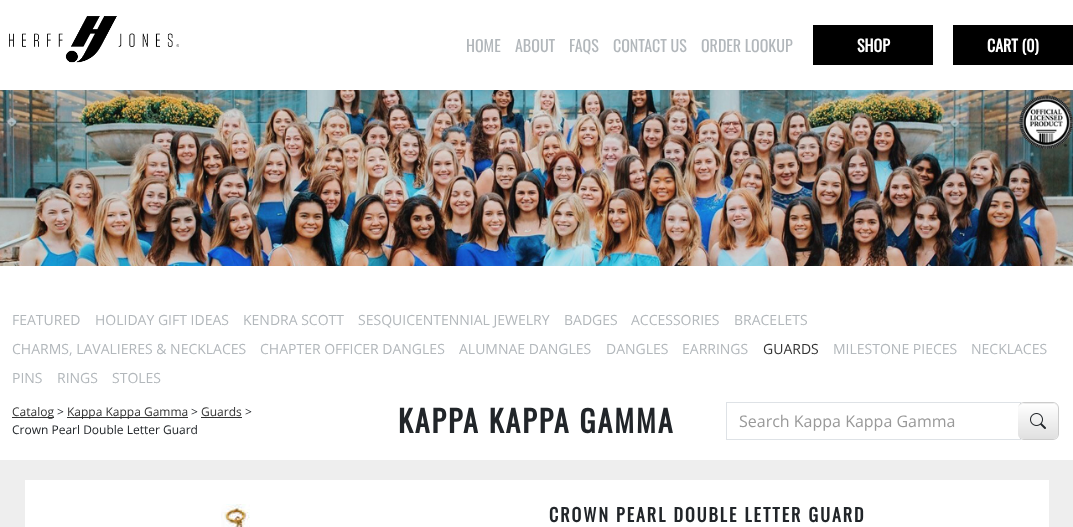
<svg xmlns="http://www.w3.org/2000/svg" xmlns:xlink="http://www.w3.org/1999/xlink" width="1073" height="527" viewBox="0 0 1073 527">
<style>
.cls-1{font:16px Oswald;fill:#b2b7bb}
.cls-2{font:bold 16px Oswald;fill:#ffffff}
.cls-3{font:14px Open Sans;fill:#b2b7bb}
.cls-4{font:14px Open Sans;fill:#333333}
.cls-5{font:12px Open Sans;fill:#333333}
.cls-6{font:12px Open Sans;fill:#212529}
.cls-7{font:bold 30px Oswald;letter-spacing:2px;fill:#212529}
.cls-8{font:16px Open Sans;fill:#999999}
.cls-9{font:bold 18px Oswald;letter-spacing:2px;fill:#212529}
</style>
<rect width="100%" height="100%" fill="#ffffff"/>
<image xlink:href="image0.png" x="9" y="16" width="170" height="47"/>
<rect fill="#000000" x="813" y="25" width="120" height="40"/>
<rect fill="#000000" x="953" y="25" width="120" height="40"/>
<image xlink:href="image1.png" x="0" y="90" width="1073" height="176"/>
<rect fill="#333333" x="12" y="417" width="42" height="1"/>
<rect fill="#333333" x="67" y="417" width="121" height="1"/>
<rect fill="#333333" x="201" y="417" width="41" height="1"/>
<rect fill="none" stroke="#dee2e6" x="726.5" y="402.5" width="294" height="37"/>
<image xlink:href="image2.png" x="1018" y="404" width="40" height="35"/>
<path fill="#000000" fill-opacity="0.07" d="M1024 404H1053C1056 404 1058 406 1058 409C1058 402 1053 403 1048 403H1029C1024 403 1018 403 1018 409C1018 406 1021 404 1024 404Z"/>
<path fill="#cccccc" fill-rule="evenodd" d="M1024 402H1053C1056 402 1059 405 1059 408V434C1059 437 1056 440 1053 440H1024C1021 440 1018 437 1018 434V408C1018 405 1021 402 1024 402ZM1024 403H1053C1056 403 1058 405 1058 408V434C1058 437 1056 439 1053 439H1024C1021 439 1018 437 1018 434V408C1018 405 1021 403 1024 403Z"/>
<image xlink:href="image3.png" x="1030" y="413" width="16" height="16"/>
<rect fill="#eeeeee" x="0" y="460" width="1073" height="67"/>
<rect fill="#ffffff" x="25" y="480" width="1024" height="47"/>
<image xlink:href="image4.png" x="221" y="504" width="29" height="23"/>
<text class="cls-1" x="466" y="52">HOME</text>
<text class="cls-1" x="515" y="52">ABOUT</text>
<text class="cls-1" x="569" y="52">FAQS</text>
<text class="cls-1" x="613" y="52">CONTACT US</text>
<text class="cls-1" x="701" y="52">ORDER LOOKUP</text>
<text class="cls-2" x="857" y="52">SHOP</text>
<text class="cls-2" x="987" y="52">CART (0)</text>
<text class="cls-3" x="12" y="325">FEATURED</text>
<text class="cls-3" x="95" y="325">HOLIDAY GIFT IDEAS</text>
<text class="cls-3" x="243" y="325">KENDRA SCOTT</text>
<text class="cls-3" x="358" y="325">SESQUICENTENNIAL JEWELRY</text>
<text class="cls-3" x="564" y="325">BADGES</text>
<text class="cls-3" x="631" y="325">ACCESSORIES</text>
<text class="cls-3" x="734" y="325">BRACELETS</text>
<text class="cls-3" x="12" y="354">CHARMS, LAVALIERES &amp; NECKLACES</text>
<text class="cls-3" x="260" y="354">CHAPTER OFFICER DANGLES</text>
<text class="cls-3" x="459" y="354">ALUMNAE DANGLES</text>
<text class="cls-3" x="606" y="354">DANGLES</text>
<text class="cls-3" x="682" y="354">EARRINGS</text>
<text class="cls-4" x="763" y="354">GUARDS</text>
<text class="cls-3" x="833" y="354">MILESTONE PIECES</text>
<text class="cls-3" x="971" y="354">NECKLACES</text>
<text class="cls-3" x="12" y="383">PINS</text>
<text class="cls-3" x="57" y="383">RINGS</text>
<text class="cls-3" x="112" y="383">STOLES</text>
<text class="cls-5" x="12" y="416">Catalog</text>
<text class="cls-6" x="57" y="416">&gt;</text>
<text class="cls-5" x="67" y="416">Kappa Kappa Gamma</text>
<text class="cls-6" x="191" y="416">&gt;</text>
<text class="cls-5" x="201" y="416">Guards</text>
<text class="cls-6" x="245" y="416">&gt;</text>
<text class="cls-6" x="12" y="434">Crown Pearl Double Letter Guard</text>
<text class="cls-7" x="398" y="433">KAPPA KAPPA GAMMA</text>
<text class="cls-8" x="739" y="427">Search Kappa Kappa Gamma</text>
<text class="cls-9" x="549" y="522">CROWN PEARL DOUBLE LETTER GUARD</text>
</svg>
